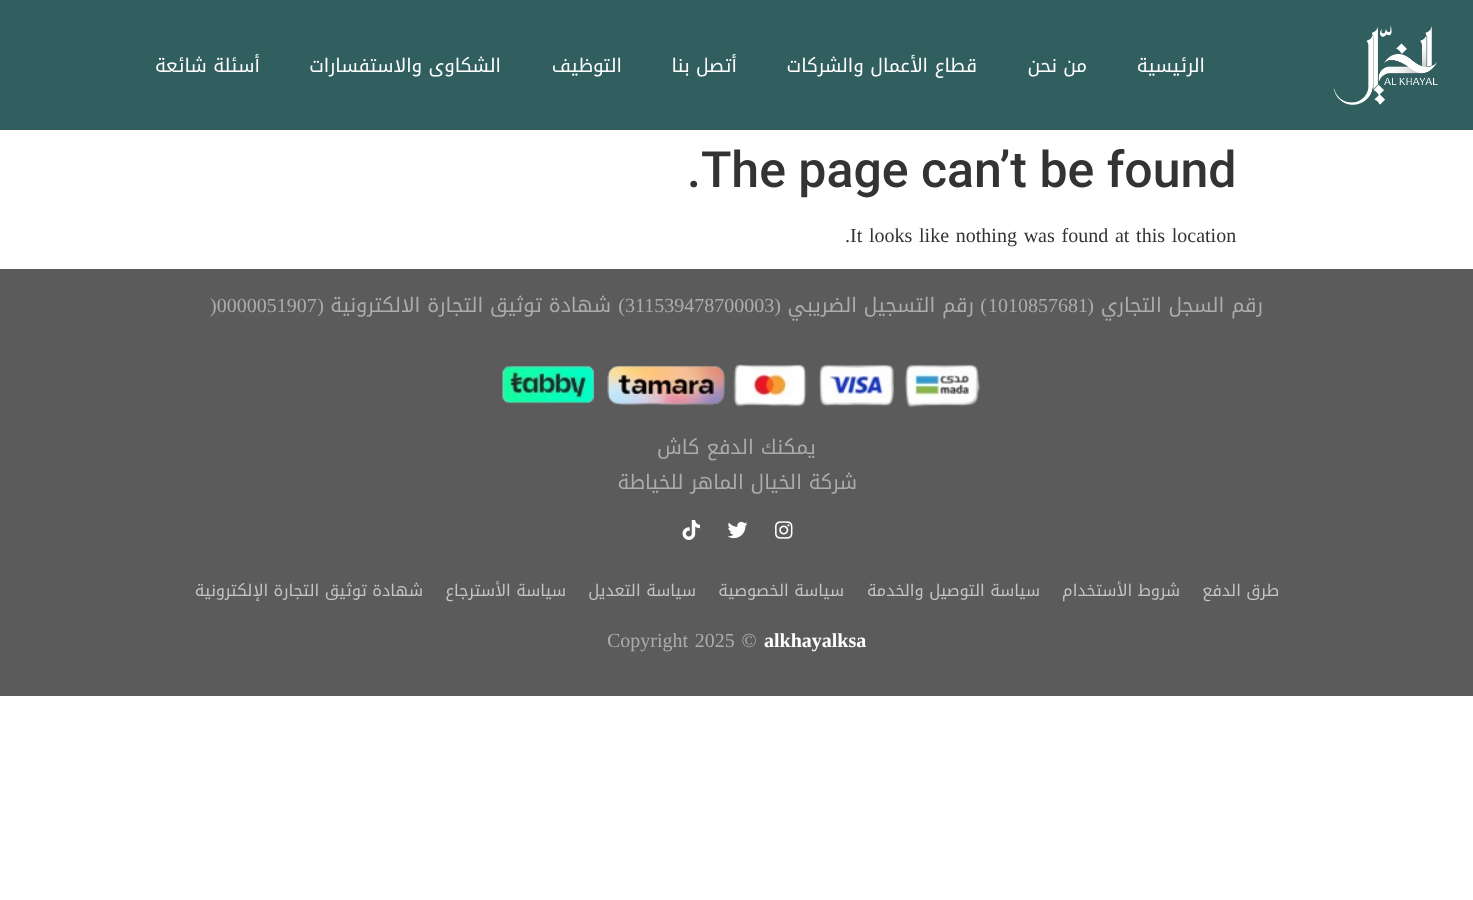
<svg xmlns="http://www.w3.org/2000/svg" xmlns:xlink="http://www.w3.org/1999/xlink" width="1473" height="900" viewBox="0 0 1473 900">
<style>
.cls-1{font:18.75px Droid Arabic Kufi;direction:rtl;fill:#ffffff}
.cls-2{font:500 50px Roboto;fill:#333333}
.cls-3{font:20px Liberation Serif;fill:#333333}
.cls-4{font:20px Droid Arabic Kufi;direction:rtl;fill:#acacac}
.cls-5{font:20px Liberation Serif;direction:rtl;fill:#acacac}
.cls-6{font:20px Liberation Serif;fill:#acacac}
.cls-7{font:16.25px Droid Arabic Kufi;direction:rtl;fill:#c4c4c4}
.cls-8{font:bold 20px Liberation Serif;fill:#ffffff}
</style>
<rect width="100%" height="100%" fill="#ffffff"/>
<rect fill="#315e5e" x="0" y="0" width="1473" height="130"/>
<image xlink:href="image0.png" x="1333" y="25" width="105" height="80"/>
<rect fill="#5b5b5b" x="0" y="269" width="1473" height="427"/>
<image xlink:href="image1.png" x="502" y="364" width="478" height="44"/>
<image xlink:href="image2.png" x="775" y="521" width="18" height="18"/>
<image xlink:href="image3.png" x="728" y="521" width="20" height="18"/>
<image xlink:href="image4.png" x="682" y="520" width="18" height="20"/>
<text class="cls-1" x="1205" y="72">الرئيسية</text>
<text class="cls-1" x="1087" y="72">من نحن</text>
<text class="cls-1" x="977" y="72">قطاع الأعمال والشركات</text>
<text class="cls-1" x="737" y="72">أتصل بنا</text>
<text class="cls-1" x="622" y="72">التوظيف</text>
<text class="cls-1" x="501" y="72">الشكاوى والاستفسارات</text>
<text class="cls-1" x="260" y="72">أسئلة شائعة</text>
<text class="cls-2" x="687" y="187">.The page can’t be found</text>
<text class="cls-3" x="850" y="242" word-spacing="1.75">It looks like nothing was found at this location</text>
<text class="cls-3" x="845" y="242">.</text>
<text class="cls-4" x="1263" y="312">رقم السجل التجاري</text>
<text class="cls-5" x="1094" y="312">(</text>
<text class="cls-6" x="988" y="312">1010857681</text>
<text class="cls-5" x="987" y="312">)</text>
<text class="cls-4" x="974" y="312">رقم التسجيل الضريبي</text>
<text class="cls-5" x="781" y="312">(</text>
<text class="cls-6" x="625" y="312">311539478700003</text>
<text class="cls-5" x="625" y="312">)</text>
<text class="cls-4" x="611" y="312">شهادة توثيق التجارة الالكترونية</text>
<text class="cls-5" x="324" y="312">(</text>
<text class="cls-6" x="210" y="312">)0000051907</text>
<text class="cls-4" x="816" y="454">يمكنك الدفع كاش</text>
<text class="cls-4" x="857" y="489">شركة الخيال الماهر للخياطة</text>
<text class="cls-7" x="1279" y="596">طرق الدفع</text>
<text class="cls-7" x="1180" y="596">شروط الأستخدام</text>
<text class="cls-7" x="1040" y="596">سياسة التوصيل والخدمة</text>
<text class="cls-7" x="844" y="596">سياسة الخصوصية</text>
<text class="cls-7" x="696" y="596">سياسة التعديل</text>
<text class="cls-7" x="566" y="596">سياسة الأسترجاع</text>
<text class="cls-7" x="423" y="596">شهادة توثيق التجارة الإلكترونية</text>
<text class="cls-8" x="764" y="647">alkhayalksa</text>
<text class="cls-6" x="607" y="647" word-spacing="1.75">Copyright 2025 ©</text>
</svg>
